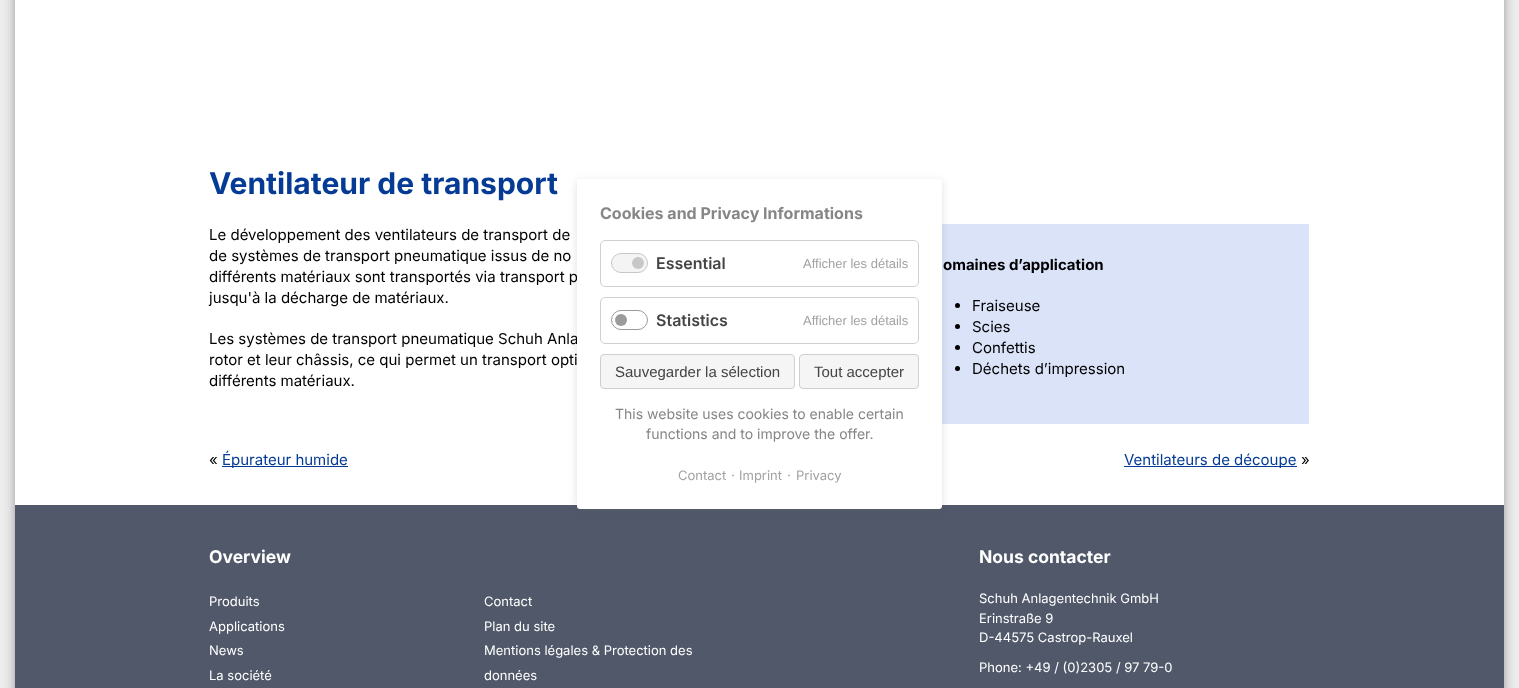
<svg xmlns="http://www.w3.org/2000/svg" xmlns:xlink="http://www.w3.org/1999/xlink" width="1519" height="688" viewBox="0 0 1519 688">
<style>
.cls-1{font:bold 30px Inter;fill:#053b95}
.cls-2{font:15px Inter;fill:#000000}
.cls-3{font:bold 15px Inter;fill:#000000}
.cls-4{font:15px Inter;fill:#053b95}
.cls-5{font:bold 17.5px Inter;fill:#ffffff}
.cls-6{font:13px Inter;fill:#ffffff}
.cls-7{font:bold 16px Inter;fill:#868686}
.cls-8{font:600 16px Inter;fill:#444444}
.cls-9{font:13px Liberation Sans;fill:#a2a2a2}
.cls-10{font:15px Liberation Sans;fill:#444444}
.cls-11{font:14px Inter;fill:#868686}
.cls-12{font:13px Inter;fill:#a2a2a2}
</style>
<rect width="100%" height="100%" fill="#ededed"/>
<rect fill="#000000" fill-opacity="0.75" filter="blur(7.5px)" x="20" y="-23" width="1479" height="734"/>
<rect fill="#ffffff" x="15" y="0" width="1489" height="505"/>
<rect fill="#dbe3f8" x="942" y="224" width="367" height="200"/>
<circle fill="#000000" cx="957.5" cy="305.5" r="2.5"/>
<circle fill="#000000" cx="957.5" cy="326.5" r="2.5"/>
<circle fill="#000000" cx="957.5" cy="347.5" r="2.5"/>
<circle fill="#000000" cx="957.5" cy="368.5" r="2.5"/>
<rect fill="#053b95" x="222" y="466" width="126" height="1"/>
<rect fill="#053b95" x="1124" y="466" width="173" height="1"/>
<rect fill="#505869" x="15" y="505" width="1489" height="183"/>
<rect fill="#636363" fill-opacity="0.2" filter="blur(4px)" x="577" y="181" width="365" height="330" rx="3"/>
<text class="cls-1" x="209" y="194">Ventilateur de transport</text>
<text class="cls-2"><tspan x="209" y="240">Le développement des ventilateurs de transport de</tspan><tspan x="209" y="261">de systèmes de transport pneumatique issus de no</tspan><tspan x="209" y="282">différents matériaux sont transportés via transport p</tspan><tspan x="209" y="303">jusqu'à la décharge de matériaux.</tspan></text>
<text class="cls-2"><tspan x="209" y="344">Les systèmes de transport pneumatique Schuh Anla</tspan><tspan x="209" y="365">rotor et leur châssis, ce qui permet un transport opti</tspan><tspan x="209" y="386">différents matériaux.</tspan></text>
<text class="cls-3" x="943" y="270">omaines d’application</text>
<text class="cls-2"><tspan x="972" y="311">Fraiseuse</tspan><tspan x="972" y="332">Scies</tspan><tspan x="972" y="353">Confettis</tspan><tspan x="972" y="374">Déchets d’impression</tspan></text>
<text class="cls-2" x="209" y="465">«</text>
<text class="cls-4" x="222" y="465">Épurateur humide</text>
<text class="cls-4" x="1124" y="465">Ventilateurs de découpe</text>
<text class="cls-2" x="1301" y="465">»</text>
<text class="cls-5" x="209" y="563">Overview</text>
<text class="cls-6"><tspan x="209" y="606">Produits</tspan><tspan x="209" y="631">Applications</tspan><tspan x="209" y="655">News</tspan><tspan x="209" y="680">La société</tspan></text>
<text class="cls-6"><tspan x="484" y="606">Contact</tspan><tspan x="484" y="631">Plan du site</tspan><tspan x="484" y="655">Mentions légales &amp; Protection des</tspan><tspan x="484" y="680">données</tspan></text>
<text class="cls-5" x="979" y="563">Nous contacter</text>
<text class="cls-6"><tspan x="979" y="603">Schuh Anlagentechnik GmbH</tspan><tspan x="979" y="623">Erinstraße 9</tspan><tspan x="979" y="642">D-44575 Castrop-Rauxel</tspan></text>
<text class="cls-6" x="979" y="672">Phone: +49 / (0)2305 / 97 79-0</text>
<rect fill="#ffffff" x="577" y="179" width="365" height="330" rx="3"/>
<text class="cls-7" x="600" y="219">Cookies and Privacy Informations</text>
<rect fill="none" stroke="#d0d0d0" x="600.5" y="240.5" width="318" height="46" rx="4.5"/>
<rect fill="#f4f4f4" stroke="#c8c7c5" x="611.5" y="253.5" width="36" height="19" rx="9.5"/>
<text class="cls-8" x="656" y="269">Essential</text>
<circle fill="#c8c7c5" cx="638" cy="263" r="6"/>
<text class="cls-9" x="803" y="268">Afficher les détails</text>
<rect fill="none" stroke="#d0d0d0" x="600.5" y="297.5" width="318" height="46" rx="4.5"/>
<rect fill="none" stroke="#9c9b99" x="611.5" y="310.5" width="36" height="19" rx="9.5"/>
<text class="cls-8" x="656" y="326">Statistics</text>
<circle fill="#9c9b99" cx="621" cy="320" r="6"/>
<text class="cls-9" x="803" y="325">Afficher les détails</text>
<rect fill="#f5f5f5" stroke="#cfcfcf" x="600.5" y="354.5" width="194" height="34" rx="3.5"/>
<text class="cls-10" x="615" y="377">Sauvegarder la sélection</text>
<rect fill="#f5f5f5" stroke="#cfcfcf" x="799.5" y="354.5" width="119" height="34" rx="3.5"/>
<text class="cls-10" x="814" y="377">Tout accepter</text>
<text class="cls-11" x="615" y="419">This website uses cookies to enable certain</text>
<text class="cls-11" x="646" y="439">functions and to improve the offer.</text>
<text class="cls-12" x="678" y="480">Contact</text>
<text class="cls-12" x="731" y="480">·</text>
<text class="cls-12" x="739" y="480">Imprint</text>
<text class="cls-12" x="787" y="480">·</text>
<text class="cls-12" x="796" y="480">Privacy</text>
</svg>
